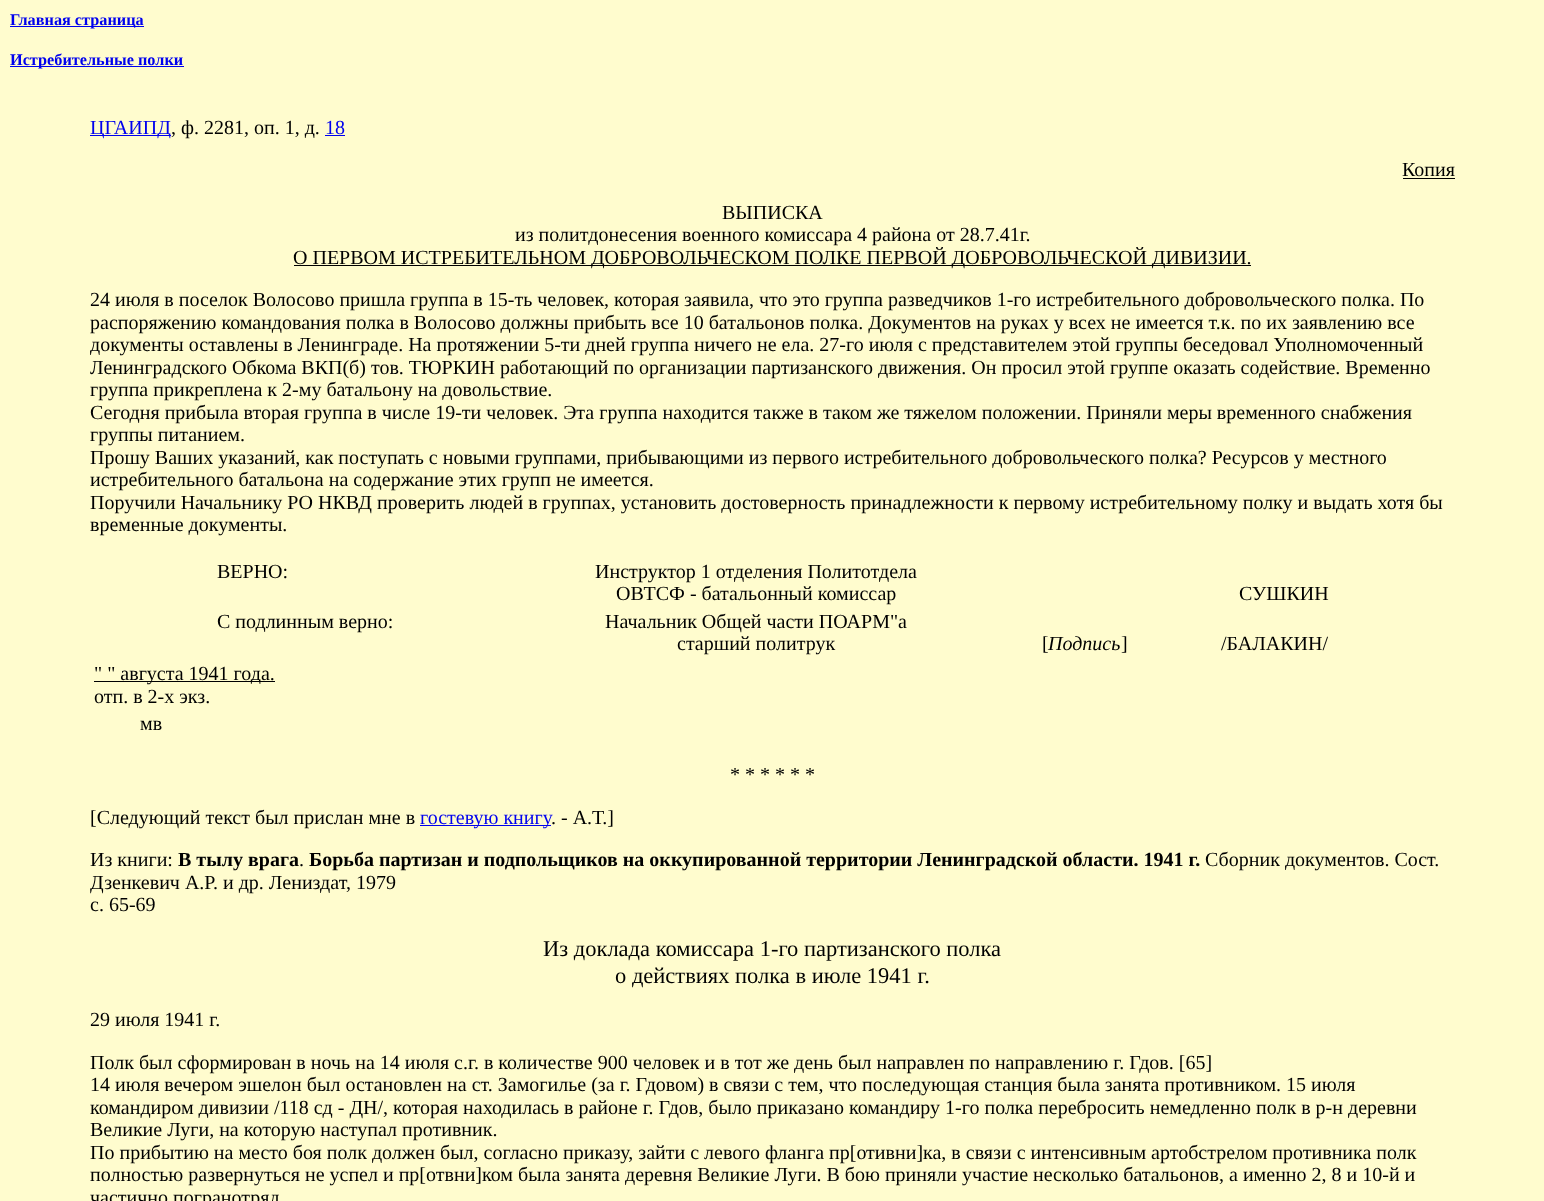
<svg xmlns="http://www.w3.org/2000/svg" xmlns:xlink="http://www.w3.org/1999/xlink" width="1544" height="1201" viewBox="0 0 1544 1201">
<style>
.cls-1{font:bold 16.25px Liberation Serif;fill:#0000ee}
.cls-2{font:20px Liberation Serif;fill:#0000ee}
.cls-3{font:20px Liberation Serif;fill:#000000}
.cls-4{font:italic 20px Liberation Serif;fill:#000000}
.cls-5{font:bold 20px Liberation Serif;fill:#000000}
.cls-6{font:22.5px Liberation Serif;fill:#000000}
</style>
<rect width="100%" height="100%" fill="#fffcce"/>
<rect fill="#0000ee" x="10" y="26" width="134" height="1"/>
<rect fill="#0000ee" x="10" y="66" width="174" height="1"/>
<rect fill="#0000ee" x="90" y="135" width="81" height="1"/>
<rect fill="#0000ee" x="325" y="135" width="20" height="1"/>
<rect fill="#000000" x="1403" y="178" width="52" height="1"/>
<rect fill="#000000" x="294" y="265" width="957" height="1"/>
<rect fill="#000000" x="94" y="681" width="181" height="1"/>
<rect fill="#0000ee" x="420" y="825" width="131" height="1"/>
<text class="cls-1" x="10" y="25">Главная страница</text>
<text class="cls-1" x="10" y="65">Истребительные полки</text>
<text class="cls-2" x="90" y="134">ЦГАИПД</text>
<text class="cls-3" x="171" y="134">, ф. 2281, оп. 1, д.</text>
<text class="cls-2" x="325" y="134">18</text>
<text class="cls-3" x="1402" y="176">Копия</text>
<text class="cls-3" x="722" y="219">ВЫПИСКА</text>
<text class="cls-3" x="515" y="241">из политдонесения военного комиссара 4 района от 28.7.41г.</text>
<text class="cls-3" x="293" y="264">О ПЕРВОМ ИСТРЕБИТЕЛЬНОМ ДОБРОВОЛЬЧЕСКОМ ПОЛКЕ ПЕРВОЙ ДОБРОВОЛЬЧЕСКОЙ ДИВИЗИИ.</text>
<text class="cls-3"><tspan x="90" y="306">24 июля в поселок Волосово пришла группа в 15-ть человек, которая заявила, что это группа разведчиков 1-го истребительного добровольческого полка. По</tspan><tspan x="90" y="329">распоряжению командования полка в Волосово должны прибыть все 10 батальонов полка. Документов на руках у всех не имеется т.к. по их заявлению все</tspan><tspan x="90" y="351">документы оставлены в Ленинграде. На протяжении 5-ти дней группа ничего не ела. 27-го июля с представителем этой группы беседовал Уполномоченный</tspan><tspan x="90" y="374">Ленинградского Обкома ВКП(б) тов. ТЮРКИН работающий по организации партизанского движения. Он просил этой группе оказать содействие. Временно</tspan><tspan x="90" y="396">группа прикреплена к 2-му батальону на довольствие.</tspan><tspan x="90" y="419">Сегодня прибыла вторая группа в числе 19-ти человек. Эта группа находится также в таком же тяжелом положении. Приняли меры временного снабжения</tspan><tspan x="90" y="441">группы питанием.</tspan><tspan x="90" y="464">Прошу Ваших указаний, как поступать с новыми группами, прибывающими из первого истребительного добровольческого полка? Ресурсов у местного</tspan><tspan x="90" y="486">истребительного батальона на содержание этих групп не имеется.</tspan><tspan x="90" y="509">Поручили Начальнику РО НКВД проверить людей в группах, установить достоверность принадлежности к первому истребительному полку и выдать хотя бы</tspan><tspan x="90" y="531">временные документы.</tspan></text>
<text class="cls-3" x="217" y="578">ВЕРНО:</text>
<text class="cls-3" x="595" y="578">Инструктор 1 отделения Политотдела</text>
<text class="cls-3" x="616" y="600">ОВТСФ - батальонный комиссар</text>
<text class="cls-3" x="1239" y="600">СУШКИН</text>
<text class="cls-3" x="217" y="628">С подлинным верно:</text>
<text class="cls-3" x="605" y="628">Начальник Общей части ПОАРМ"а</text>
<text class="cls-3" x="677" y="650">старший политрук</text>
<text class="cls-3" x="1042" y="650">[</text>
<text class="cls-4" x="1048" y="650">Подпись</text>
<text class="cls-3" x="1121" y="650">]</text>
<text class="cls-3" x="1221" y="650">/БАЛАКИН/</text>
<text class="cls-3"><tspan x="94" y="680">" " августа 1941 года.</tspan><tspan x="94" y="703">отп. в 2-х экз.</tspan></text>
<text class="cls-3" x="140" y="730">мв</text>
<text class="cls-3" x="730" y="781">* * * * * *</text>
<text class="cls-3" x="90" y="824">[Следующий текст был прислан мне в</text>
<text class="cls-2" x="420" y="824">гостевую книгу</text>
<text class="cls-3" x="551" y="824">. - А.Т.]</text>
<text class="cls-3" x="90" y="866">Из книги:</text>
<text class="cls-5" x="178" y="866">В тылу врага</text>
<text class="cls-3" x="299" y="866">.</text>
<text class="cls-5" x="309" y="866">Борьба партизан и подпольщиков на оккупированной территории Ленинградской области. 1941 г.</text>
<text class="cls-3" x="1205" y="866">Сборник документов. Сост.</text>
<text class="cls-3"><tspan x="90" y="889">Дзенкевич А.Р. и др. Лениздат, 1979</tspan><tspan x="90" y="911">с. 65-69</tspan></text>
<text class="cls-6" x="543" y="956">Из доклада комиссара 1-го партизанского полка</text>
<text class="cls-6" x="615" y="983">о действиях полка в июле 1941 г.</text>
<text class="cls-3" x="90" y="1026">29 июля 1941 г.</text>
<text class="cls-3"><tspan x="90" y="1069">Полк был сформирован в ночь на 14 июля с.г. в количестве 900 человек и в тот же день был направлен по направлению г. Гдов. [65]</tspan><tspan x="90" y="1091">14 июля вечером эшелон был остановлен на ст. Замогилье (за г. Гдовом) в связи с тем, что последующая станция была занята противником. 15 июля</tspan><tspan x="90" y="1114">командиром дивизии /118 сд - ДН/, которая находилась в районе г. Гдов, было приказано командиру 1-го полка перебросить немедленно полк в р-н деревни</tspan><tspan x="90" y="1136">Великие Луги, на которую наступал противник.</tspan><tspan x="90" y="1159">По прибытию на место боя полк должен был, согласно приказу, зайти с левого фланга пр[отивни]ка, в связи с интенсивным артобстрелом противника полк</tspan><tspan x="90" y="1181">полностью развернуться не успел и пр[отвни]ком была занята деревня Великие Луги. В бою приняли участие несколько батальонов, а именно 2, 8 и 10-й и</tspan><tspan x="90" y="1204">частично погранотряд</tspan></text>
</svg>
